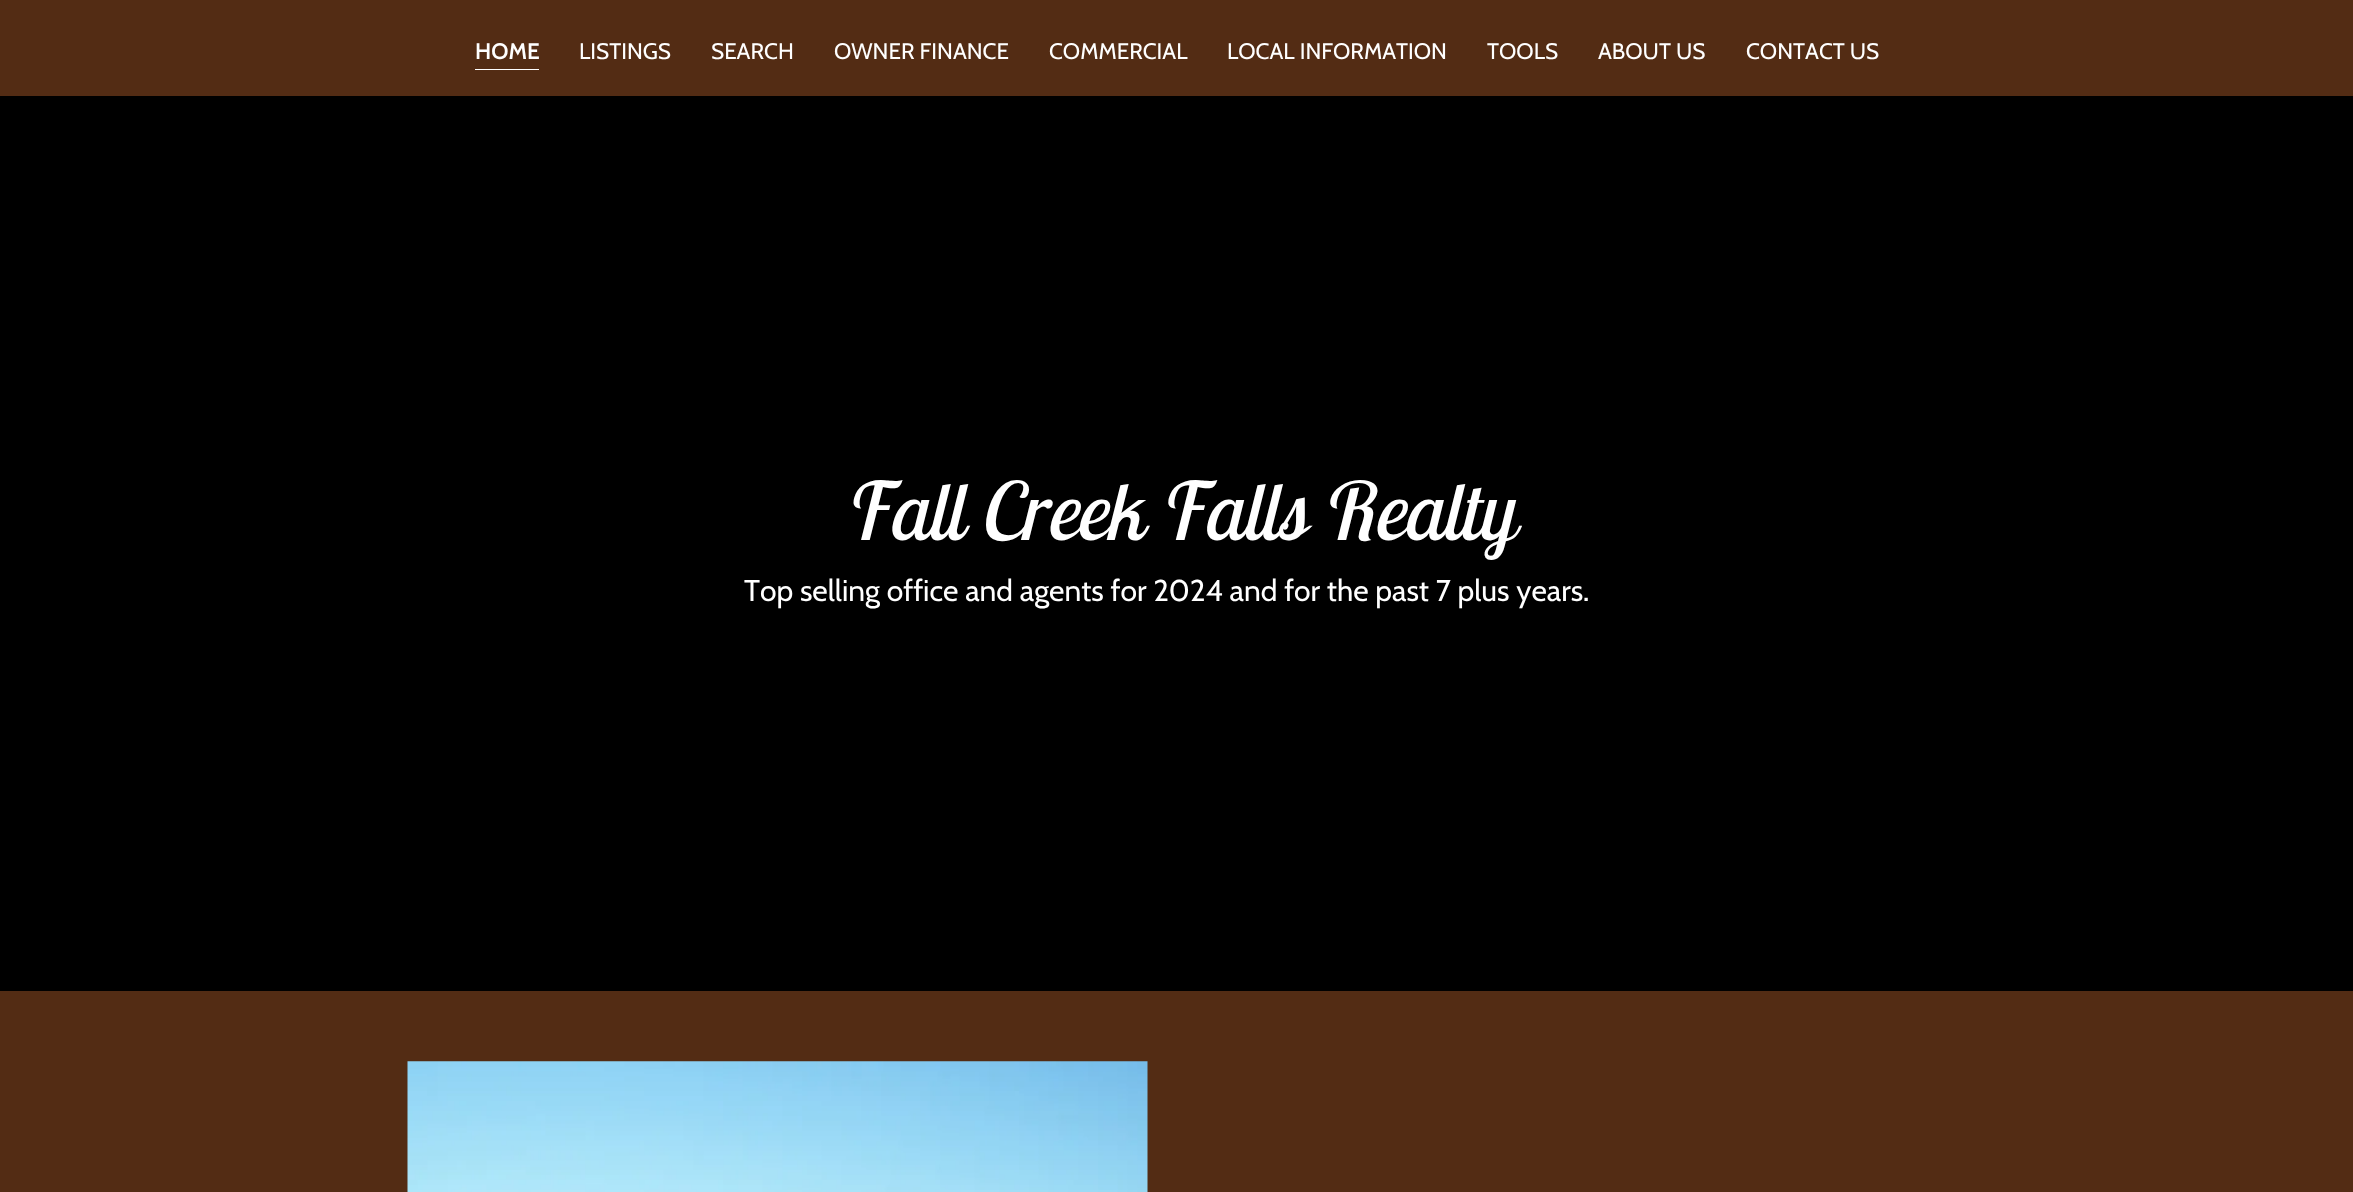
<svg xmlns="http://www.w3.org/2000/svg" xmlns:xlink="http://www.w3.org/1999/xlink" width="2353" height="1192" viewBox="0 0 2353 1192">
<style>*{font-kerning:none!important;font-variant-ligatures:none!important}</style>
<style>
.cls-1{font:600 22.5px Cabin;fill:#ffffff}
.cls-2{font:22.5px Cabin;fill:#ffffff}
.cls-3{font:italic 80px Lobster Two;fill:#ffffff}
.cls-4{font:30px Cabin;fill:#ffffff}
</style>
<rect width="100%" height="100%" fill="#532c14"/>
<rect fill="#ffffff" x="475" y="69" width="64" height="1"/>
<rect fill="#000000" x="0" y="96" width="2353" height="895"/>
<image xlink:href="image0.png" x="407" y="1061" width="741" height="131"/>
<text class="cls-1" x="475" y="59">HOME</text>
<text class="cls-2" x="579" y="59">LISTINGS</text>
<text class="cls-2" x="711" y="59">SEARCH</text>
<text class="cls-2" x="834" y="59">OWNER FINANCE</text>
<text class="cls-2" x="1049" y="59">COMMERCIAL</text>
<text class="cls-2" x="1227" y="59">LOCAL INFORMATION</text>
<text class="cls-2" x="1487" y="59">TOOLS</text>
<text class="cls-2" x="1598" y="59">ABOUT US</text>
<text class="cls-2" x="1746" y="59">CONTACT US</text>
<text class="cls-3" x="842" y="540">Fall Creek Falls Realty</text>
<text class="cls-4" x="744" y="601">Top selling office and agents for 2024 and for the past 7 plus years.</text>
</svg>
